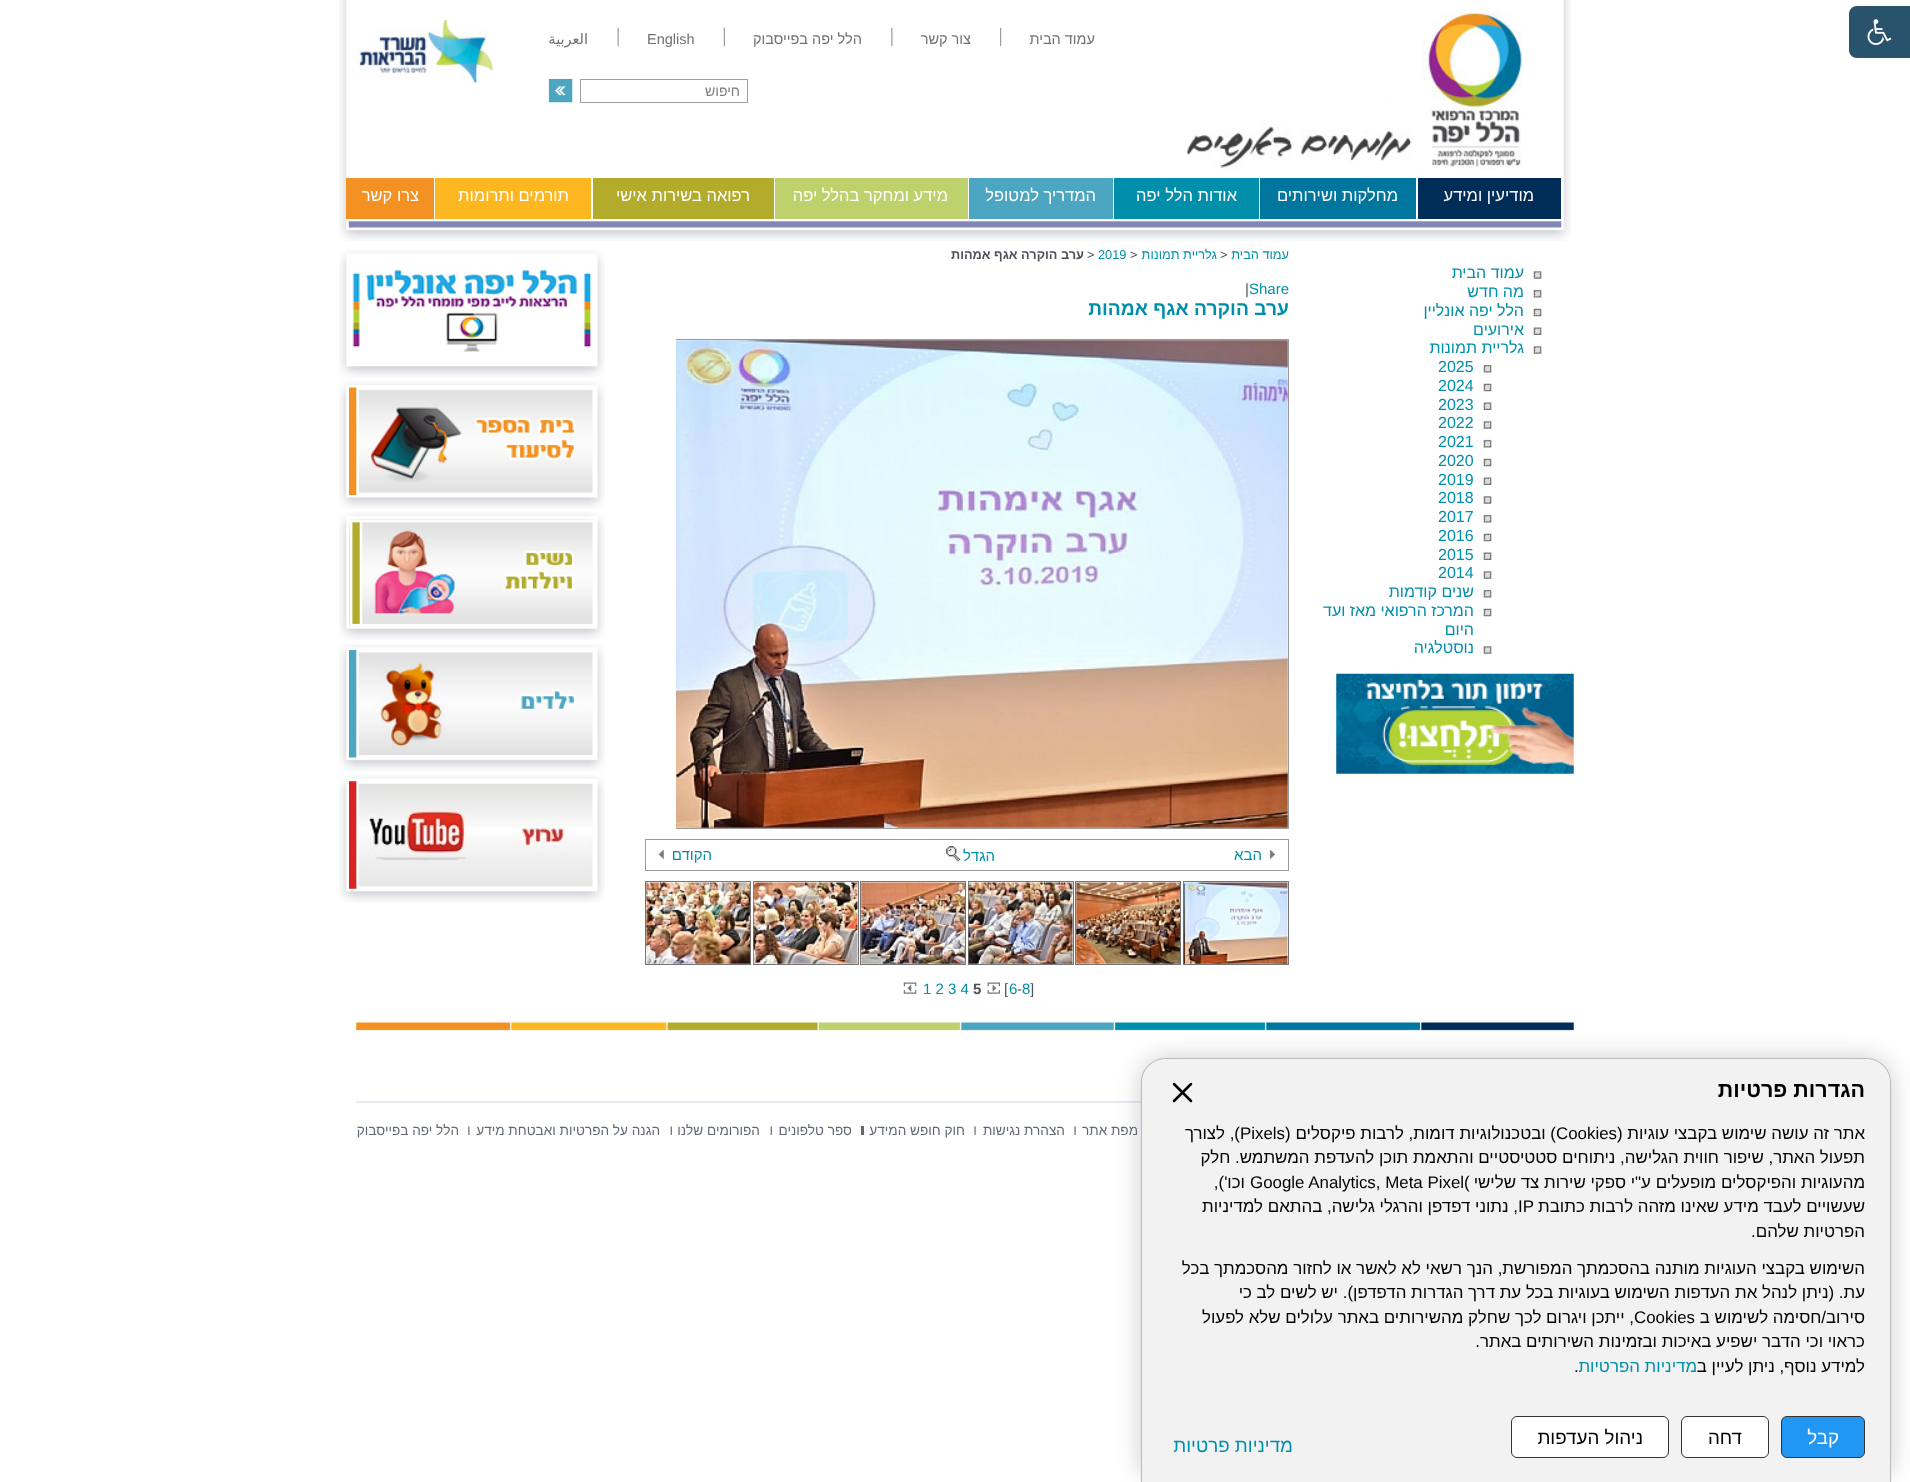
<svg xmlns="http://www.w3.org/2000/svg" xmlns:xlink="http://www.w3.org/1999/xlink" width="1910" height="1482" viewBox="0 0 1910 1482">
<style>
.cls-1{font:14.5px Liberation Sans;direction:rtl;fill:#71706c}
.cls-2{font:14.5px Liberation Sans;fill:#71706c}
.cls-3{font:14.5px DejaVu Sans;direction:rtl;fill:#71706c}
.cls-4{font:14px Liberation Sans;direction:rtl;fill:#7d7d7e}
.cls-5{font:16.5px Liberation Sans;direction:rtl;fill:#ffffff}
.cls-6{font:16px Liberation Sans;direction:rtl;fill:#008faa}
.cls-7{font:16px Liberation Sans;fill:#008faa}
.cls-8{font:12.75px Liberation Sans;direction:rtl;fill:#008faa}
.cls-9{font:12.75px Liberation Sans;fill:#4d515b}
.cls-10{font:12.75px Liberation Sans;fill:#008faa}
.cls-11{font:bold 12.75px Liberation Sans;direction:rtl;fill:#4d515b}
.cls-12{font:15px Liberation Sans;fill:#008faa}
.cls-13{font:15px Liberation Sans;fill:#4d515b}
.cls-14{font:bold 19.25px Liberation Sans;direction:rtl;fill:#008faa}
.cls-15{font:15px Liberation Sans;direction:rtl;fill:#008faa}
.cls-16{font:bold 15px Liberation Sans;fill:#4d515b}
.cls-17{font:13.6px Liberation Sans;direction:rtl;fill:#626875}
.cls-18{font:bold 21.5px Liberation Sans;direction:rtl;fill:#000000}
.cls-19{font:16.9px Liberation Sans;direction:rtl;fill:#000000}
.cls-20{font:16.9px Liberation Sans;fill:#000000}
.cls-21{font:16.9px Liberation Sans;direction:rtl;fill:#008faa}
.cls-22{font:18.75px Liberation Sans;direction:rtl;fill:#ffffff}
.cls-23{font:18.75px Liberation Sans;direction:rtl;fill:#000000}
.cls-24{font:18.75px Liberation Sans;direction:rtl;fill:#008faa}
</style>
<defs>
<clipPath id="clip1"><rect x="676" y="339" width="613" height="490"/></clipPath>
</defs>
<rect width="100%" height="100%" fill="#ffffff"/>
<path fill="#29536c" d="M1857 6H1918V58H1857C1852.5 58 1849 54.5 1849 50V14C1849 9.5 1852.5 6 1857 6Z"/>
<image xlink:href="image0.png" x="1867" y="19" width="25" height="26"/>
<image xlink:href="image1.png" x="339" y="0" width="1232" height="241"/>
<image xlink:href="image2.png" x="1185" y="10" width="337" height="160"/>
<image xlink:href="image3.png" x="1000" y="27" width="2" height="20"/>
<image xlink:href="image4.png" x="891" y="27" width="2" height="20"/>
<image xlink:href="image5.png" x="723" y="27" width="2" height="20"/>
<image xlink:href="image6.png" x="617" y="27" width="2" height="20"/>
<rect fill="none" stroke="#a0a0a0" x="580.5" y="79.5" width="167" height="23"/>
<image xlink:href="image7.png" x="548" y="78" width="25" height="25"/>
<image xlink:href="image8.png" x="348" y="221" width="1214" height="7"/>
<rect fill="#002d57" x="1418" y="178" width="143" height="41"/>
<rect fill="#00759e" x="1260" y="178" width="156" height="41"/>
<rect fill="#008faa" x="1114" y="178" width="145" height="41"/>
<rect fill="#4ca6c1" x="969" y="178" width="144" height="41"/>
<rect fill="#bed16d" x="775" y="178" width="193" height="41"/>
<rect fill="#b2ab2c" x="593" y="178" width="181" height="41"/>
<rect fill="#fdb721" x="435" y="178" width="156" height="41"/>
<rect fill="#f39122" x="346" y="178" width="88" height="41"/>
<image xlink:href="image9.png" x="1533" y="271" width="9" height="8"/>
<image xlink:href="image10.png" x="1533" y="289" width="9" height="9"/>
<image xlink:href="image11.png" x="1533" y="308" width="9" height="9"/>
<image xlink:href="image12.png" x="1533" y="327" width="9" height="8"/>
<image xlink:href="image9.png" x="1533" y="346" width="9" height="8"/>
<image xlink:href="image13.png" x="1483" y="364" width="9" height="9"/>
<image xlink:href="image14.png" x="1483" y="383" width="9" height="9"/>
<image xlink:href="image15.png" x="1483" y="402" width="9" height="8"/>
<image xlink:href="image16.png" x="1483" y="421" width="9" height="8"/>
<image xlink:href="image13.png" x="1483" y="439" width="9" height="9"/>
<image xlink:href="image14.png" x="1483" y="458" width="9" height="9"/>
<image xlink:href="image15.png" x="1483" y="477" width="9" height="8"/>
<image xlink:href="image16.png" x="1483" y="496" width="9" height="8"/>
<image xlink:href="image13.png" x="1483" y="514" width="9" height="9"/>
<image xlink:href="image14.png" x="1483" y="533" width="9" height="9"/>
<image xlink:href="image15.png" x="1483" y="552" width="9" height="8"/>
<image xlink:href="image16.png" x="1483" y="571" width="9" height="8"/>
<image xlink:href="image17.png" x="1483" y="589" width="9" height="9"/>
<image xlink:href="image14.png" x="1483" y="608" width="9" height="9"/>
<image xlink:href="image16.png" x="1483" y="646" width="9" height="8"/>
<image xlink:href="image18.png" x="1336" y="673" width="238" height="101"/>
<g clip-path="url(#clip1)">
<rect fill="none" stroke="#9a9a9a" x="674.5" y="339.5" width="614" height="489"/>
</g>
<image xlink:href="image19.png" x="676" y="340" width="612" height="488"/>
<rect fill="none" stroke="#9a9a9a" x="645.5" y="839.5" width="643" height="31"/>
<image xlink:href="image20.png" x="1269" y="849" width="6" height="10"/>
<image xlink:href="image21.png" x="946" y="846" width="15" height="16"/>
<image xlink:href="image22.png" x="658" y="849" width="6" height="10"/>
<rect fill="none" stroke="#757575" x="1183.5" y="881.5" width="105" height="83"/>
<image xlink:href="image23.png" x="1183" y="882" width="105" height="82"/>
<rect fill="none" stroke="#757575" x="1075.5" y="881.5" width="105" height="83"/>
<image xlink:href="image24.png" x="1076" y="882" width="104" height="82"/>
<rect fill="none" stroke="#757575" x="968.5" y="881.5" width="105" height="83"/>
<image xlink:href="image25.png" x="968" y="882" width="105" height="82"/>
<rect fill="none" stroke="#757575" x="860.5" y="881.5" width="105" height="83"/>
<image xlink:href="image26.png" x="861" y="882" width="104" height="82"/>
<rect fill="none" stroke="#757575" x="753.5" y="881.5" width="105" height="83"/>
<image xlink:href="image27.png" x="753" y="882" width="105" height="82"/>
<rect fill="none" stroke="#757575" x="645.5" y="881.5" width="105" height="83"/>
<image xlink:href="image28.png" x="646" y="882" width="104" height="82"/>
<image xlink:href="image29.png" x="987" y="982" width="13" height="12"/>
<image xlink:href="image30.png" x="903" y="982" width="14" height="12"/>
<image xlink:href="image31.png" x="339" y="250" width="266" height="128"/>
<image xlink:href="image32.png" x="352" y="266" width="240" height="86"/>
<image xlink:href="image33.png" x="339" y="381" width="266" height="128"/>
<image xlink:href="image34.png" x="349" y="387" width="244" height="108"/>
<image xlink:href="image35.png" x="339" y="512" width="266" height="128"/>
<image xlink:href="image36.png" x="349" y="518" width="246" height="109"/>
<image xlink:href="image37.png" x="339" y="644" width="266" height="127"/>
<image xlink:href="image38.png" x="349" y="650" width="244" height="108"/>
<image xlink:href="image39.png" x="339" y="775" width="266" height="128"/>
<image xlink:href="image40.png" x="349" y="781" width="244" height="108"/>
<image xlink:href="image41.png" x="356" y="1022" width="1218" height="81"/>
<image xlink:href="image42.png" x="1074" y="1126" width="2" height="9"/>
<image xlink:href="image42.png" x="974" y="1126" width="2" height="9"/>
<rect fill="#666666" x="861" y="1126" width="3" height="9"/>
<image xlink:href="image43.png" x="770" y="1126" width="2" height="9"/>
<image xlink:href="image43.png" x="670" y="1126" width="2" height="9"/>
<image xlink:href="image44.png" x="468" y="1126" width="2" height="9"/>
<rect fill="#000000" fill-opacity="0.2" filter="blur(12.5px)" x="1141" y="1058" width="750" height="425" rx="25"/>
<path fill="#f2f2f2" d="M1166 1058H1866C1880 1058 1891 1069 1891 1083V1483H1141V1083C1141 1069 1152 1058 1166 1058Z"/>
<path fill="#bbbbbb" fill-rule="evenodd" d="M1166 1058H1866C1880 1058 1891 1069 1891 1082V1482H1141V1082C1141 1069 1152 1058 1166 1058ZM1166 1059H1866C1879 1059 1890 1069 1890 1082V1482H1142V1082C1142 1069 1153 1059 1166 1059Z"/>
<path fill="none" stroke="#000000" stroke-width="2.5" stroke-linecap="round" stroke-linejoin="round" d="M1174 1084L1191 1101M1174 1101L1191 1084"/>
<rect fill="#2196f3" stroke="#333333" x="1781.5" y="1416.5" width="83" height="41" rx="5.5"/>
<rect fill="#ffffff" stroke="#333333" x="1681.5" y="1416.5" width="87" height="41" rx="5.5"/>
<rect fill="#ffffff" stroke="#333333" x="1511.5" y="1416.5" width="157" height="41" rx="5.5"/>
<text class="cls-1" x="1095" y="44">עמוד הבית</text>
<text class="cls-1" x="971" y="44">צור קשר</text>
<text class="cls-1" x="862" y="44">הלל יפה בפייסבוק</text>
<text class="cls-2" x="647" y="44">English</text>
<text class="cls-3" x="588" y="44">العربية</text>
<text class="cls-4" x="740" y="96">חיפוש</text>
<text class="cls-5" x="1534" y="201">מודיעין ומידע</text>
<text class="cls-5" x="1398" y="201">מחלקות ושירותים</text>
<text class="cls-5" x="1237" y="201">אודות הלל יפה</text>
<text class="cls-5" x="1096" y="201">המדריך למטופל</text>
<text class="cls-5" x="948" y="201">מידע ומחקר בהלל יפה</text>
<text class="cls-5" x="750" y="201">רפואה בשירות אישי</text>
<text class="cls-5" x="569" y="201">תורמים ותרומות</text>
<text class="cls-5" x="419" y="201">צרו קשר</text>
<text class="cls-6"><tspan x="1524" y="278">עמוד הבית</tspan><tspan x="1524" y="297">מה חדש</tspan><tspan x="1524" y="316">הלל יפה אונליין</tspan><tspan x="1524" y="335">אירועים</tspan><tspan x="1524" y="353">גלריית תמונות</tspan></text>
<text class="cls-7"><tspan x="1438" y="372">2025</tspan><tspan x="1438" y="391">2024</tspan><tspan x="1438" y="410">2023</tspan><tspan x="1438" y="428">2022</tspan><tspan x="1438" y="447">2021</tspan><tspan x="1438" y="466">2020</tspan><tspan x="1438" y="485">2019</tspan><tspan x="1438" y="503">2018</tspan><tspan x="1438" y="522">2017</tspan><tspan x="1438" y="541">2016</tspan><tspan x="1438" y="560">2015</tspan><tspan x="1438" y="578">2014</tspan></text>
<text class="cls-6"><tspan x="1474" y="597">שנים קודמות</tspan><tspan x="1474" y="616">המרכז הרפואי מאז ועד</tspan><tspan x="1474" y="635">היום</tspan><tspan x="1474" y="653">נוסטלגיה</tspan></text>
<text class="cls-8" x="1289" y="259">עמוד הבית</text>
<text class="cls-9" x="1220" y="259">&gt;</text>
<text class="cls-8" x="1217" y="259">גלריית תמונות</text>
<text class="cls-9" x="1130" y="259">&gt;</text>
<text class="cls-10" x="1098" y="259">2019</text>
<text class="cls-9" x="1087" y="259">&gt;</text>
<text class="cls-11" x="1084" y="259">ערב הוקרה אגף אמהות</text>
<text class="cls-12" x="1249" y="294">Share</text>
<text class="cls-13" x="1245" y="294">|</text>
<text class="cls-14" x="1289" y="315">ערב הוקרה אגף אמהות</text>
<text class="cls-15" x="1262" y="860">הבא</text>
<text class="cls-15" x="995" y="861">הגדל</text>
<text class="cls-15" x="712" y="860">הקודם</text>
<text class="cls-13" x="1030" y="994">]</text>
<text class="cls-12" x="1022" y="994">8</text>
<text class="cls-13" x="1017" y="994">-</text>
<text class="cls-12" x="1009" y="994">6</text>
<text class="cls-13" x="1004" y="994">[</text>
<text class="cls-16" x="973" y="994">5</text>
<text class="cls-12" x="923" y="994">1 2 3 4</text>
<text class="cls-17" x="1138" y="1135">מפת אתר</text>
<text class="cls-17" x="1065" y="1135">הצהרת נגישות</text>
<text class="cls-17" x="965" y="1135">חוק חופש המידע</text>
<text class="cls-17" x="852" y="1135">ספר טלפונים</text>
<text class="cls-17" x="760" y="1135">הפורומים שלנו</text>
<text class="cls-17" x="660" y="1135">הגנה על הפרטיות ואבטחת מידע</text>
<text class="cls-17" x="459" y="1135">הלל יפה בפייסבוק</text>
<text class="cls-18" x="1865" y="1097">הגדרות פרטיות</text>
<text class="cls-19" x="1865" y="1139">אתר זה עושה שימוש בקבצי עוגיות (</text>
<text class="cls-20" x="1556" y="1139">Cookies</text>
<text class="cls-19" x="1556" y="1139">) ובטכנולוגיות דומות, לרבות פיקסלים (</text>
<text class="cls-20" x="1240" y="1139">Pixels</text>
<text class="cls-19" x="1240" y="1139">), לצורך</text>
<text class="cls-19"><tspan x="1865" y="1163">תפעול האתר, שיפור חווית הגלישה, ניתוחים סטטיסטיים והתאמת תוכן להעדפת המשתמש. חלק</tspan><tspan x="1865" y="1188">מהעוגיות והפיקסלים מופעלים ע"י ספקי שירות צד שלישי</tspan></text>
<text class="cls-20" x="1250" y="1188">Google Analytics, Meta Pixel(</text>
<text class="cls-19" x="1245" y="1188">וכו'),</text>
<text class="cls-19" x="1865" y="1212">שעשויים לעבד מידע שאינו מזהה לרבות כתובת</text>
<text class="cls-20" x="1518" y="1212">IP</text>
<text class="cls-19" x="1518" y="1212">, נתוני דפדפן והרגלי גלישה, בהתאם למדיניות</text>
<text class="cls-19" x="1865" y="1237">הפרטיות שלהם.</text>
<text class="cls-19"><tspan x="1865" y="1274">השימוש בקבצי העוגיות מותנה בהסכמתך המפורשת, הנך רשאי לא לאשר או לחזור מהסכמתך בכל</tspan><tspan x="1865" y="1298">עת. (ניתן לנהל את העדפות השימוש בעוגיות בכל עת דרך הגדרות הדפדפן). יש לשים לב כי</tspan><tspan x="1865" y="1323">סירוב/חסימה לשימוש ב</tspan></text>
<text class="cls-20" x="1634" y="1323">Cookies</text>
<text class="cls-19" x="1634" y="1323">, ייתכן ויגרום לכך שחלק מהשירותים באתר עלולים שלא לפעול</text>
<text class="cls-19"><tspan x="1865" y="1347">כראוי וכי הדבר ישפיע באיכות ובזמינות השירותים באתר.</tspan><tspan x="1865" y="1372">למידע נוסף, ניתן לעיין ב</tspan></text>
<text class="cls-21" x="1697" y="1372">מדיניות הפרטיות</text>
<text class="cls-20" x="1574" y="1372">.</text>
<text class="cls-22" x="1839" y="1444">קבל</text>
<text class="cls-23" x="1742" y="1444">דחה</text>
<text class="cls-23" x="1643" y="1444">ניהול העדפות</text>
<text class="cls-24" x="1293" y="1452">מדיניות פרטיות</text>
</svg>
